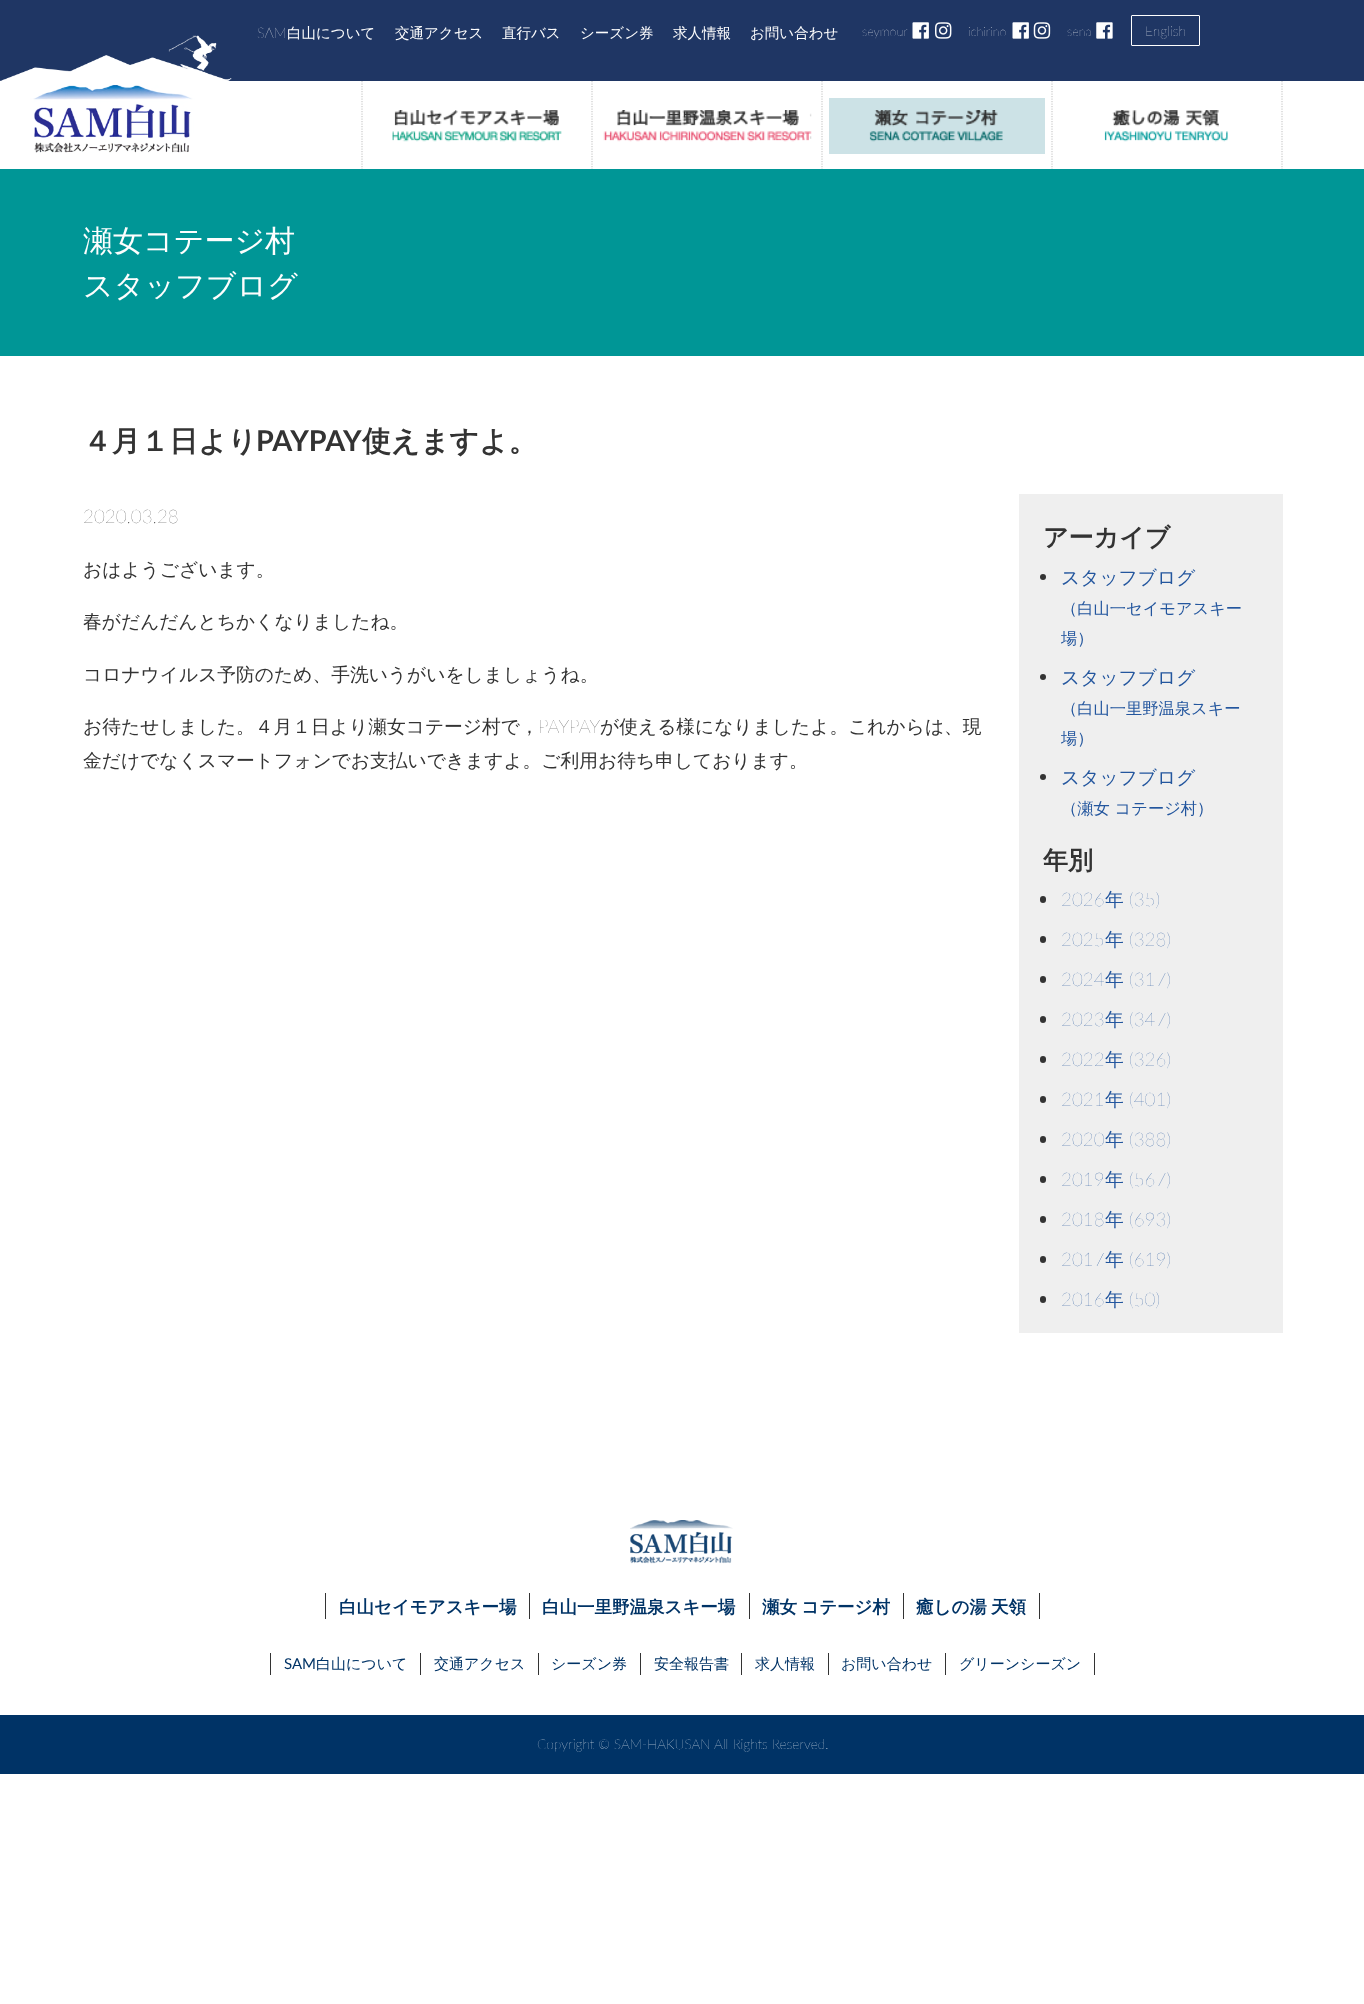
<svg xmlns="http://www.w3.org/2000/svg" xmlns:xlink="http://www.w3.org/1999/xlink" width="1364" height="2004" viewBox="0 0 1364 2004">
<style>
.cls-1{font:200 14.5px Lato;fill:#fefefe}
.cls-2{font:500 14.5px WenQuanYi Zen Hei;fill:#fefefe}
.cls-3{font:200 12.5px Lato;fill:#fefefe}
.cls-4{font:200 13.75px Lato;fill:#fefefe}
.cls-5{font:500 30px WenQuanYi Zen Hei;fill:#fefefe}
.cls-6{font:bold 28.75px WenQuanYi Zen Hei;fill:#333333}
.cls-7{font:bold 28.75px Lato;fill:#333333}
.cls-8{font:200 18.75px Lato;fill:#333333}
.cls-9{font:500 18.75px WenQuanYi Zen Hei;fill:#333333}
.cls-10{font:bold 25px WenQuanYi Zen Hei;fill:#333333}
.cls-11{font:500 18.75px WenQuanYi Zen Hei;fill:#23569e}
.cls-12{font:500 16.25px WenQuanYi Zen Hei;fill:#23569e}
.cls-13{font:200 18.75px Lato;fill:#23569e}
.cls-14{font:bold 17.5px WenQuanYi Zen Hei;fill:#003366}
.cls-15{font:15px Lato;fill:#003366}
.cls-16{font:500 15px WenQuanYi Zen Hei;fill:#003366}
</style>
<rect width="100%" height="100%" fill="#ffffff"/>
<rect fill="#1f3664" x="0" y="0" width="1364" height="81"/>
<image xlink:href="image0.png" x="912" y="22" width="17" height="17"/>
<image xlink:href="image1.png" x="935" y="22" width="17" height="17"/>
<image xlink:href="image0.png" x="1012" y="22" width="17" height="17"/>
<image xlink:href="image2.png" x="1033" y="22" width="18" height="17"/>
<image xlink:href="image3.png" x="1096" y="22" width="17" height="17"/>
<rect fill="none" stroke="#ffffff" x="1131.5" y="15.5" width="68" height="30" rx="0.5"/>
<image xlink:href="image4.png" x="0" y="35" width="232" height="118"/>
<path fill="none" stroke="#cccccc" stroke-width="1.2" stroke-dasharray="1.25 1.25" d="M1282 81V169"/>
<path fill="none" stroke="#cccccc" stroke-width="1.2" stroke-dasharray="1.25 1.25" d="M362 81V169"/>
<image xlink:href="image5.png" x="392" y="110" width="170" height="32"/>
<path fill="none" stroke="#cccccc" stroke-width="1.2" stroke-dasharray="1.25 1.25" d="M592 81V169"/>
<image xlink:href="image6.png" x="603" y="110" width="209" height="32"/>
<path fill="none" stroke="#cccccc" stroke-width="1.2" stroke-dasharray="1.25 1.25" d="M822 81V169"/>
<rect fill="#cce2e6" x="829" y="98" width="216" height="56"/>
<image xlink:href="image7.png" x="869" y="110" width="134" height="32"/>
<path fill="none" stroke="#cccccc" stroke-width="1.2" stroke-dasharray="1.25 1.25" d="M1052 81V169"/>
<image xlink:href="image8.png" x="1104" y="110" width="124" height="32"/>
<rect fill="#009696" x="0" y="169" width="1364" height="187"/>
<rect fill="#efefef" x="1019" y="494" width="264" height="839"/>
<circle fill="#333333" cx="1043" cy="577" r="3"/>
<circle fill="#333333" cx="1043" cy="677" r="3"/>
<circle fill="#333333" cx="1043" cy="777" r="3"/>
<rect fill="#333333" x="1040" y="896" width="6" height="7" rx="3"/>
<rect fill="#333333" x="1040" y="936" width="6" height="7" rx="3"/>
<rect fill="#333333" x="1040" y="976" width="6" height="7" rx="3"/>
<rect fill="#333333" x="1040" y="1016" width="6" height="7" rx="3"/>
<rect fill="#333333" x="1040" y="1056" width="6" height="7" rx="3"/>
<rect fill="#333333" x="1040" y="1096" width="6" height="7" rx="3"/>
<rect fill="#333333" x="1040" y="1136" width="6" height="7" rx="3"/>
<rect fill="#333333" x="1040" y="1176" width="6" height="7" rx="3"/>
<rect fill="#333333" x="1040" y="1216" width="6" height="7" rx="3"/>
<rect fill="#333333" x="1040" y="1256" width="6" height="7" rx="3"/>
<rect fill="#333333" x="1040" y="1296" width="6" height="7" rx="3"/>
<image xlink:href="image9.png" x="630" y="1520" width="103" height="44"/>
<rect fill="#333333" x="529" y="1593" width="1" height="26"/>
<rect fill="#333333" x="325" y="1593" width="1" height="26"/>
<rect fill="#333333" x="749" y="1593" width="1" height="26"/>
<rect fill="#333333" x="903" y="1593" width="1" height="26"/>
<rect fill="#333333" x="1039" y="1593" width="1" height="26"/>
<rect fill="#333333" x="420" y="1653" width="1" height="22"/>
<rect fill="#333333" x="270" y="1653" width="1" height="22"/>
<rect fill="#333333" x="538" y="1653" width="1" height="22"/>
<rect fill="#333333" x="640" y="1653" width="1" height="22"/>
<rect fill="#333333" x="741" y="1653" width="1" height="22"/>
<rect fill="#333333" x="828" y="1653" width="1" height="22"/>
<rect fill="#333333" x="945" y="1653" width="1" height="22"/>
<rect fill="#333333" x="1094" y="1653" width="1" height="22"/>
<rect fill="#003366" x="0" y="1715" width="1364" height="59"/>
<text class="cls-1" x="257" y="38">SAM</text>
<text class="cls-2" x="287" y="38">白山について</text>
<text class="cls-2" x="395" y="38">交通アクセス</text>
<text class="cls-2" x="502" y="38">直行バス</text>
<text class="cls-2" x="580" y="38">シーズン券</text>
<text class="cls-2" x="673" y="38">求人情報</text>
<text class="cls-2" x="750" y="38">お問い合わせ</text>
<text class="cls-3" x="862" y="36">seymour</text>
<text class="cls-3" x="968" y="36">ichirino</text>
<text class="cls-3" x="1067" y="36">sena</text>
<text class="cls-4" x="1145" y="36">English</text>
<text class="cls-5"><tspan x="83" y="251">瀬女コテージ村</tspan><tspan x="83" y="296">スタッフブログ</tspan></text>
<text class="cls-6" x="83" y="451">４月１日より</text>
<text class="cls-7" x="256" y="451">PAYPAY</text>
<text class="cls-6" x="362" y="451">使えますよ。</text>
<text class="cls-8" x="83" y="523">2020.03.28</text>
<text class="cls-9" x="83" y="576">おはようございます。</text>
<text class="cls-9" x="83" y="628">春がだんだんとちかくなりましたね。</text>
<text class="cls-9" x="83" y="681">コロナウイルス予防のため、手洗いうがいをしましょうね。</text>
<text class="cls-9" x="83" y="733">お待たせしました。４月１日より瀬女コテージ村で，</text>
<text class="cls-8" x="538" y="733">PAYPAY</text>
<text class="cls-9" x="600" y="733">が使える様になりましたよ。これからは、現</text>
<text class="cls-9" x="83" y="767">金だけでなくスマートフォンでお支払いできますよ。ご利用お待ち申しております。</text>
<text class="cls-10" x="1043" y="546">アーカイブ</text>
<text class="cls-11" x="1061" y="584">スタッフブログ</text>
<text class="cls-12"><tspan x="1061" y="614">（白山一セイモアスキー</tspan><tspan x="1061" y="644">場）</tspan></text>
<text class="cls-11" x="1061" y="684">スタッフブログ</text>
<text class="cls-12"><tspan x="1061" y="714">（白山一里野温泉スキー</tspan><tspan x="1061" y="744">場）</tspan></text>
<text class="cls-11" x="1061" y="784">スタッフブログ</text>
<text class="cls-12" x="1061" y="814">（瀬女 コテージ村）</text>
<text class="cls-10" x="1043" y="869">年別</text>
<text class="cls-13" x="1061" y="906">2026</text>
<text class="cls-11" x="1105" y="906">年</text>
<text class="cls-13" x="1129" y="906">(35)</text>
<text class="cls-13" x="1061" y="946">2025</text>
<text class="cls-11" x="1105" y="946">年</text>
<text class="cls-13" x="1129" y="946">(328)</text>
<text class="cls-13" x="1061" y="986">2024</text>
<text class="cls-11" x="1105" y="986">年</text>
<text class="cls-13" x="1129" y="986">(317)</text>
<text class="cls-13" x="1061" y="1026">2023</text>
<text class="cls-11" x="1105" y="1026">年</text>
<text class="cls-13" x="1129" y="1026">(347)</text>
<text class="cls-13" x="1061" y="1066">2022</text>
<text class="cls-11" x="1105" y="1066">年</text>
<text class="cls-13" x="1129" y="1066">(326)</text>
<text class="cls-13" x="1061" y="1106">2021</text>
<text class="cls-11" x="1105" y="1106">年</text>
<text class="cls-13" x="1129" y="1106">(401)</text>
<text class="cls-13" x="1061" y="1146">2020</text>
<text class="cls-11" x="1105" y="1146">年</text>
<text class="cls-13" x="1129" y="1146">(388)</text>
<text class="cls-13" x="1061" y="1186">2019</text>
<text class="cls-11" x="1105" y="1186">年</text>
<text class="cls-13" x="1129" y="1186">(567)</text>
<text class="cls-13" x="1061" y="1226">2018</text>
<text class="cls-11" x="1105" y="1226">年</text>
<text class="cls-13" x="1129" y="1226">(693)</text>
<text class="cls-13" x="1061" y="1266">2017</text>
<text class="cls-11" x="1105" y="1266">年</text>
<text class="cls-13" x="1129" y="1266">(619)</text>
<text class="cls-13" x="1061" y="1306">2016</text>
<text class="cls-11" x="1105" y="1306">年</text>
<text class="cls-13" x="1129" y="1306">(50)</text>
<text class="cls-14" x="339" y="1613">白山セイモアスキー場</text>
<text class="cls-14" x="542" y="1613">白山一里野温泉スキー場</text>
<text class="cls-14" x="762" y="1613" word-spacing="-1">瀬女 コテージ村</text>
<text class="cls-14" x="916" y="1613" word-spacing="-1">癒しの湯 天領</text>
<text class="cls-15" x="284" y="1669">SAM</text>
<text class="cls-16" x="316" y="1669">白山について</text>
<text class="cls-16" x="434" y="1669">交通アクセス</text>
<text class="cls-16" x="551" y="1669">シーズン券</text>
<text class="cls-16" x="654" y="1669">安全報告書</text>
<text class="cls-16" x="755" y="1669">求人情報</text>
<text class="cls-16" x="841" y="1669">お問い合わせ</text>
<text class="cls-16" x="959" y="1669">グリーンシーズン</text>
<text class="cls-4" x="537" y="1749">Copyright © SAM-HAKUSAN All Rights Reserved.</text>
</svg>
